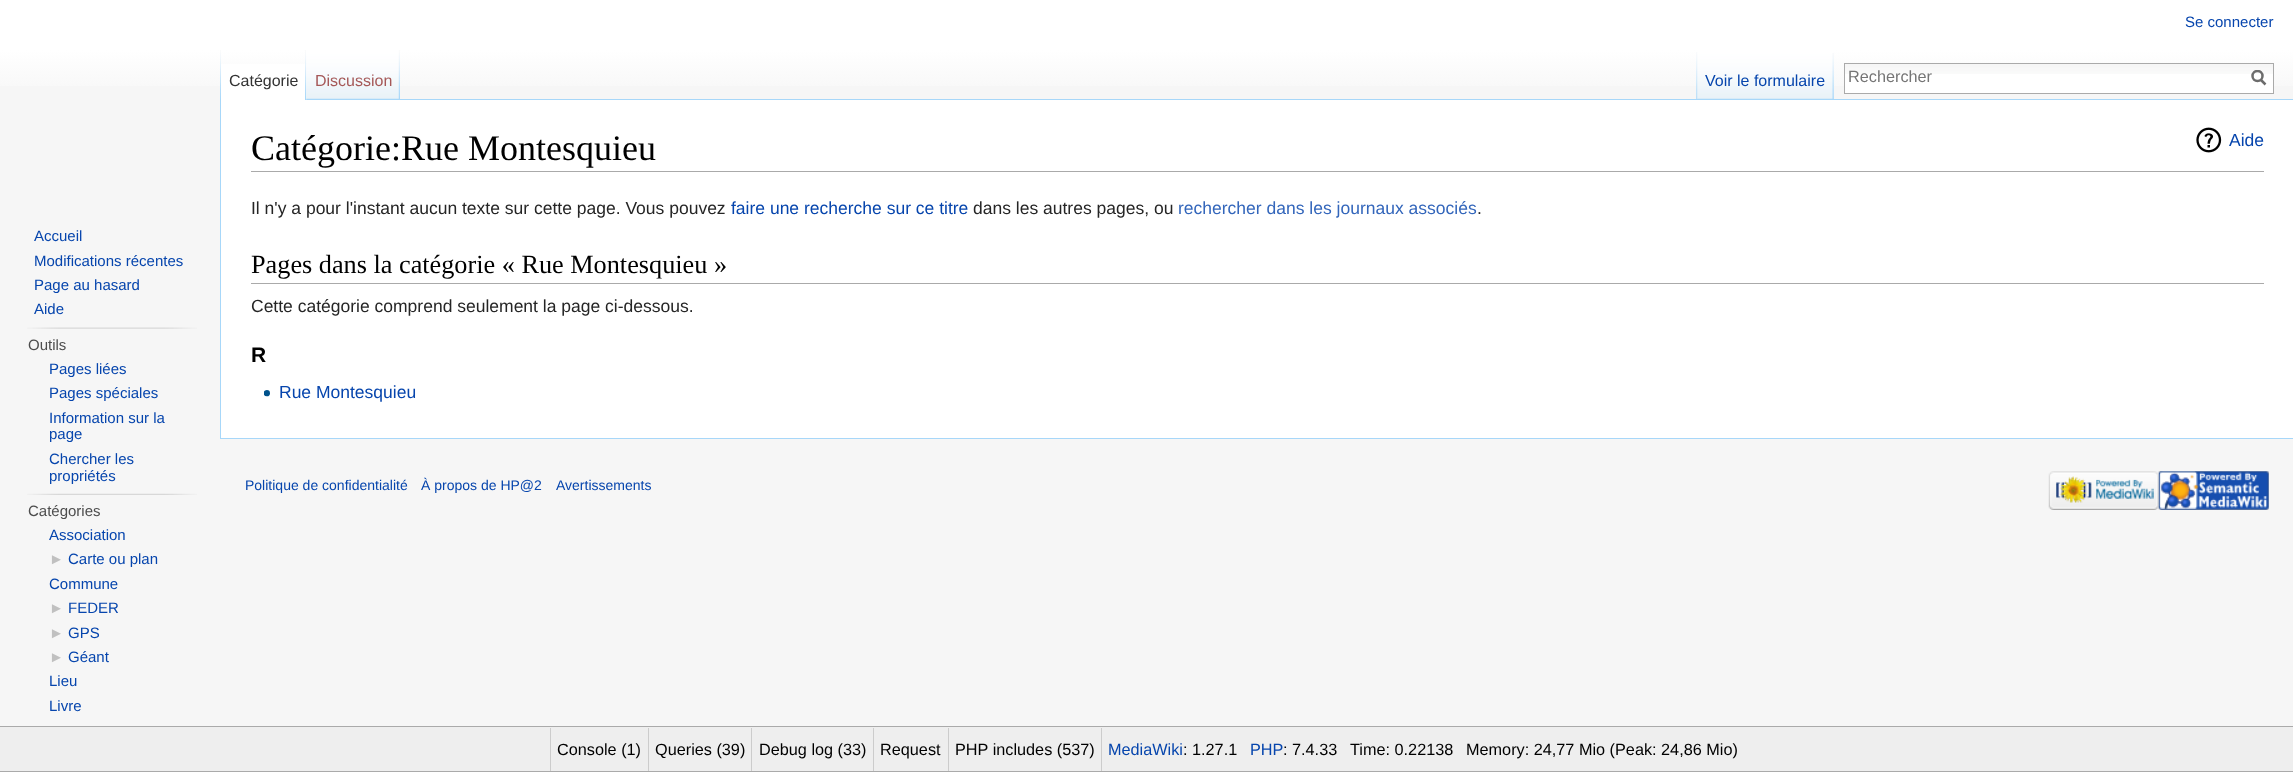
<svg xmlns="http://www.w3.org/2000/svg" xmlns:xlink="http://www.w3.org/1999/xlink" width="2293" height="772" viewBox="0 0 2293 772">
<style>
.cls-1{font:15px Liberation Sans;fill:#0645ad}
.cls-2{font:16px Liberation Sans;fill:#333333}
.cls-3{font:16px Liberation Sans;fill:#a55858}
.cls-4{font:16px Liberation Sans;fill:#0645ad}
.cls-5{font:16.25px Liberation Sans;fill:#757575}
.cls-6{font:15px Liberation Sans;fill:#4d4d4d}
.cls-7{font:15px Liberation Sans;fill:#c0c0c0}
.cls-8{font:36px Liberation Serif;fill:#000000}
.cls-9{font:17.5px Liberation Sans;fill:#0645ad}
.cls-10{font:17.5px Liberation Sans;fill:#252525}
.cls-11{font:17.5px Liberation Sans;fill:#3366bb}
.cls-12{font:26.25px Liberation Serif;fill:#000000}
.cls-13{font:bold 21px Liberation Sans;fill:#000000}
.cls-14{font:14px Liberation Sans;fill:#0645ad}
.cls-15{font:16.25px Liberation Sans;fill:#000000}
.cls-16{font:16.25px Liberation Sans;fill:#0645ad}
</style>
<defs>
<linearGradient id="g1" gradientUnits="userSpaceOnUse" x1="1147" y1="0" x2="1147" y2="100"><stop offset="0.5" stop-color="#ffffff"/><stop offset="1" stop-color="#f6f6f6"/></linearGradient>
<clipPath id="clip1"><rect x="2251" y="70" width="15" height="16"/></clipPath>
</defs>
<rect width="100%" height="100%" fill="#f6f6f6"/>
<rect fill="url(#g1)" x="0" y="0" width="2293" height="86"/>
<image xlink:href="image0.png" x="220" y="50" width="1" height="49"/>
<rect fill="#ffffff" x="221" y="64" width="86" height="36"/>
<image xlink:href="image1.png" x="305" y="50" width="2" height="50"/>
<image xlink:href="image2.png" x="306" y="50" width="94" height="50"/>
<image xlink:href="image3.png" x="398" y="50" width="2" height="49"/>
<image xlink:href="image4.png" x="1696" y="52" width="2" height="47"/>
<image xlink:href="image5.png" x="1833" y="52" width="1" height="47"/>
<rect fill="#a7d7f9" x="400" y="99" width="1893" height="1"/>
<image xlink:href="image6.png" x="1697" y="50" width="137" height="50"/>
<image xlink:href="image7.png" x="1832" y="53" width="2" height="47"/>
<rect fill="#ffffff" x="1845" y="74" width="428" height="19"/>
<image xlink:href="image8.png" x="1845" y="64" width="428" height="10"/>
<rect fill="none" stroke="#aaaaaa" x="1844.5" y="63.5" width="429" height="30"/>
<path fill="none" stroke="#6c6c6c" stroke-width="2.5" d="M2265.5 84.5L2260.5 79.5"/>
<g clip-path="url(#clip1)">
<circle fill="none" stroke="#6c6c6c" stroke-width="2.5" cx="2257.5" cy="76" r="5"/>
</g>
<image xlink:href="image9.png" x="27" y="327" width="170" height="2"/>
<image xlink:href="image10.png" x="27" y="493" width="170" height="2"/>
<rect fill="#ffffff" x="221" y="100" width="2072" height="338"/>
<rect fill="#a7d7f9" x="220" y="438" width="2073" height="1"/>
<rect fill="#a7d7f9" x="220" y="99" width="1" height="340"/>
<rect fill="#aaaaaa" x="251" y="171" width="2013" height="1"/>
<image xlink:href="image11.png" x="2196" y="127" width="26" height="26"/>
<rect fill="#aaaaaa" x="251" y="283" width="2013" height="1"/>
<image xlink:href="image12.png" x="264" y="390" width="6" height="7"/>
<image xlink:href="image13.png" x="2048" y="471" width="111" height="39"/>
<image xlink:href="image14.png" x="2158" y="471" width="111" height="39"/>
<rect fill="#eeeeee" x="0" y="727" width="2293" height="44"/>
<rect fill="#aaaaaa" x="0" y="726" width="2293" height="1"/>
<rect fill="#aaaaaa" x="0" y="771" width="2293" height="1"/>
<rect fill="#cccccc" x="648" y="728" width="1" height="43"/>
<rect fill="#cccccc" x="550" y="728" width="1" height="43"/>
<rect fill="#cccccc" x="751" y="728" width="1" height="43"/>
<rect fill="#cccccc" x="873" y="728" width="1" height="43"/>
<rect fill="#cccccc" x="948" y="728" width="1" height="43"/>
<rect fill="#cccccc" x="1101" y="728" width="1" height="43"/>
<text class="cls-1" x="2185" y="27">Se connecter</text>
<text class="cls-2" x="229" y="86">Catégorie</text>
<text class="cls-3" x="315" y="86">Discussion</text>
<text class="cls-4" x="1705" y="86">Voir le formulaire</text>
<text class="cls-5" x="1848" y="82">Rechercher</text>
<text class="cls-1"><tspan x="34" y="241">Accueil</tspan><tspan x="34" y="266">Modifications récentes</tspan><tspan x="34" y="290">Page au hasard</tspan><tspan x="34" y="314">Aide</tspan></text>
<text class="cls-6" x="28" y="350">Outils</text>
<text class="cls-1"><tspan x="49" y="374">Pages liées</tspan><tspan x="49" y="398">Pages spéciales</tspan><tspan x="49" y="423">Information sur la</tspan><tspan x="49" y="439">page</tspan><tspan x="49" y="464">Chercher les</tspan><tspan x="49" y="481">propriétés</tspan></text>
<text class="cls-6" x="28" y="516">Catégories</text>
<text class="cls-1" x="49" y="540">Association</text>
<text class="cls-7" x="49" y="564">►</text>
<text class="cls-1" x="68" y="564">Carte ou plan</text>
<text class="cls-1" x="49" y="589">Commune</text>
<text class="cls-7" x="49" y="613">►</text>
<text class="cls-1" x="68" y="613">FEDER</text>
<text class="cls-7" x="49" y="638">►</text>
<text class="cls-1" x="68" y="638">GPS</text>
<text class="cls-7" x="49" y="662">►</text>
<text class="cls-1" x="68" y="662">Géant</text>
<text class="cls-1"><tspan x="49" y="686">Lieu</tspan><tspan x="49" y="711">Livre</tspan></text>
<text class="cls-8" x="251" y="160">Catégorie:Rue Montesquieu</text>
<text class="cls-9" x="2229" y="146">Aide</text>
<text class="cls-10" x="251" y="214">Il n'y a pour l'instant aucun texte sur cette page. Vous pouvez</text>
<text class="cls-9" x="731" y="214">faire une recherche sur ce titre</text>
<text class="cls-10" x="973" y="214">dans les autres pages, ou</text>
<text class="cls-11" x="1178" y="214">rechercher dans les journaux associés</text>
<text class="cls-10" x="1477" y="214">.</text>
<text class="cls-12" x="251" y="273">Pages dans la catégorie « Rue Montesquieu »</text>
<text class="cls-10" x="251" y="312">Cette catégorie comprend seulement la page ci-dessous.</text>
<text class="cls-13" x="251" y="362">R</text>
<text class="cls-9" x="279" y="398">Rue Montesquieu</text>
<text class="cls-14" x="245" y="490">Politique de confidentialité</text>
<text class="cls-14" x="421" y="490">À propos de HP@2</text>
<text class="cls-14" x="556" y="490">Avertissements</text>
<text class="cls-15" x="557" y="755">Console (1)</text>
<text class="cls-15" x="655" y="755">Queries (39)</text>
<text class="cls-15" x="759" y="755">Debug log (33)</text>
<text class="cls-15" x="880" y="755">Request</text>
<text class="cls-15" x="955" y="755">PHP includes (537)</text>
<text class="cls-16" x="1108" y="755">MediaWiki</text>
<text class="cls-15" x="1183" y="755">: 1.27.1</text>
<text class="cls-16" x="1250" y="755">PHP</text>
<text class="cls-15" x="1283" y="755">: 7.4.33</text>
<text class="cls-15" x="1350" y="755">Time: 0.22138</text>
<text class="cls-15" x="1466" y="755">Memory: 24,77 Mio (Peak: 24,86 Mio)</text>
</svg>
